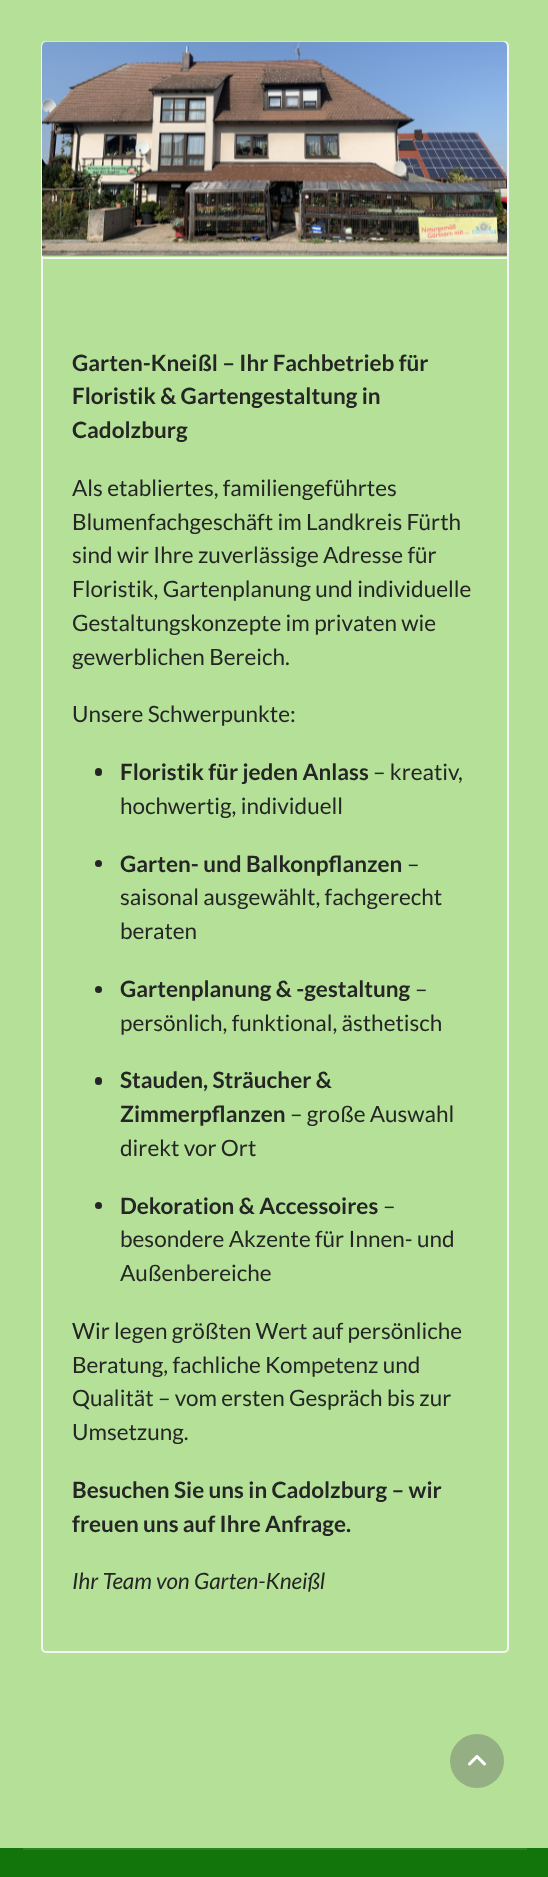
<svg xmlns="http://www.w3.org/2000/svg" xmlns:xlink="http://www.w3.org/1999/xlink" width="548" height="1877" viewBox="0 0 548 1877">
<style>
.cls-1{font:bold 22.5px Lato;fill:#252525}
.cls-2{font:22.5px Lato;fill:#252525}
.cls-3{font:italic 22.5px Lato;fill:#252525}
</style>
<rect width="100%" height="100%" fill="#b4e197"/>
<rect fill="none" stroke="#f5f5f5" stroke-width="2" x="42" y="42" width="466" height="1610" rx="4"/>
<rect fill="#f5f5f5" x="42" y="257" width="465" height="2"/>
<image xlink:href="image0.png" x="42" y="41" width="465" height="215"/>
<rect fill="#252525" x="95" y="768" width="7" height="8" rx="3.5"/>
<circle fill="#252525" cx="98.5" cy="863.5" r="3.5"/>
<circle fill="#252525" cx="98.5" cy="989.5" r="3.5"/>
<rect fill="#252525" x="95" y="1077" width="7" height="8" rx="3.5"/>
<circle fill="#252525" cx="98.5" cy="1205.5" r="3.5"/>
<rect fill="#11750b" x="0" y="1848" width="548" height="29"/>
<rect fill="#298323" x="23" y="1848" width="504" height="2"/>
<circle fill="#94af83" cx="477" cy="1761" r="27"/>
<image xlink:href="image1.png" x="468" y="1755" width="18" height="11"/>
<text class="cls-1"><tspan x="72" y="371">Garten-Kneißl – Ihr Fachbetrieb für</tspan><tspan x="72" y="404">Floristik &amp; Gartengestaltung in</tspan><tspan x="72" y="438">Cadolzburg</tspan></text>
<text class="cls-2"><tspan x="72" y="496">Als etabliertes, familiengeführtes</tspan><tspan x="72" y="530">Blumenfachgeschäft im Landkreis Fürth</tspan><tspan x="72" y="563">sind wir Ihre zuverlässige Adresse für</tspan><tspan x="72" y="597">Floristik, Gartenplanung und individuelle</tspan><tspan x="72" y="631">Gestaltungskonzepte im privaten wie</tspan><tspan x="72" y="665">gewerblichen Bereich.</tspan></text>
<text class="cls-2" x="72" y="722">Unsere Schwerpunkte:</text>
<text class="cls-1" x="120" y="780">Floristik für jeden Anlass</text>
<text class="cls-2" x="373" y="780">– kreativ,</text>
<text class="cls-2" x="120" y="814">hochwertig, individuell</text>
<text class="cls-1" x="120" y="872">Garten- und Balkonpflanzen</text>
<text class="cls-2" x="407" y="872">–</text>
<text class="cls-2"><tspan x="120" y="905">saisonal ausgewählt, fachgerecht</tspan><tspan x="120" y="939">beraten</tspan></text>
<text class="cls-1" x="120" y="997">Gartenplanung &amp; -gestaltung</text>
<text class="cls-2" x="415" y="997">–</text>
<text class="cls-2" x="120" y="1031">persönlich, funktional, ästhetisch</text>
<text class="cls-1"><tspan x="120" y="1088">Stauden, Sträucher &amp;</tspan><tspan x="120" y="1122">Zimmerpflanzen</tspan></text>
<text class="cls-2" x="290" y="1122">– große Auswahl</text>
<text class="cls-2" x="120" y="1156">direkt vor Ort</text>
<text class="cls-1" x="120" y="1214">Dekoration &amp; Accessoires</text>
<text class="cls-2" x="383" y="1214">–</text>
<text class="cls-2"><tspan x="120" y="1247">besondere Akzente für Innen- und</tspan><tspan x="120" y="1281">Außenbereiche</tspan></text>
<text class="cls-2"><tspan x="72" y="1339">Wir legen größten Wert auf persönliche</tspan><tspan x="72" y="1373">Beratung, fachliche Kompetenz und</tspan><tspan x="72" y="1406">Qualität – vom ersten Gespräch bis zur</tspan><tspan x="72" y="1440">Umsetzung.</tspan></text>
<text class="cls-1"><tspan x="72" y="1498">Besuchen Sie uns in Cadolzburg – wir</tspan><tspan x="72" y="1532">freuen uns auf Ihre Anfrage.</tspan></text>
<text class="cls-3" x="72" y="1589">Ihr Team von Garten-Kneißl</text>
</svg>
